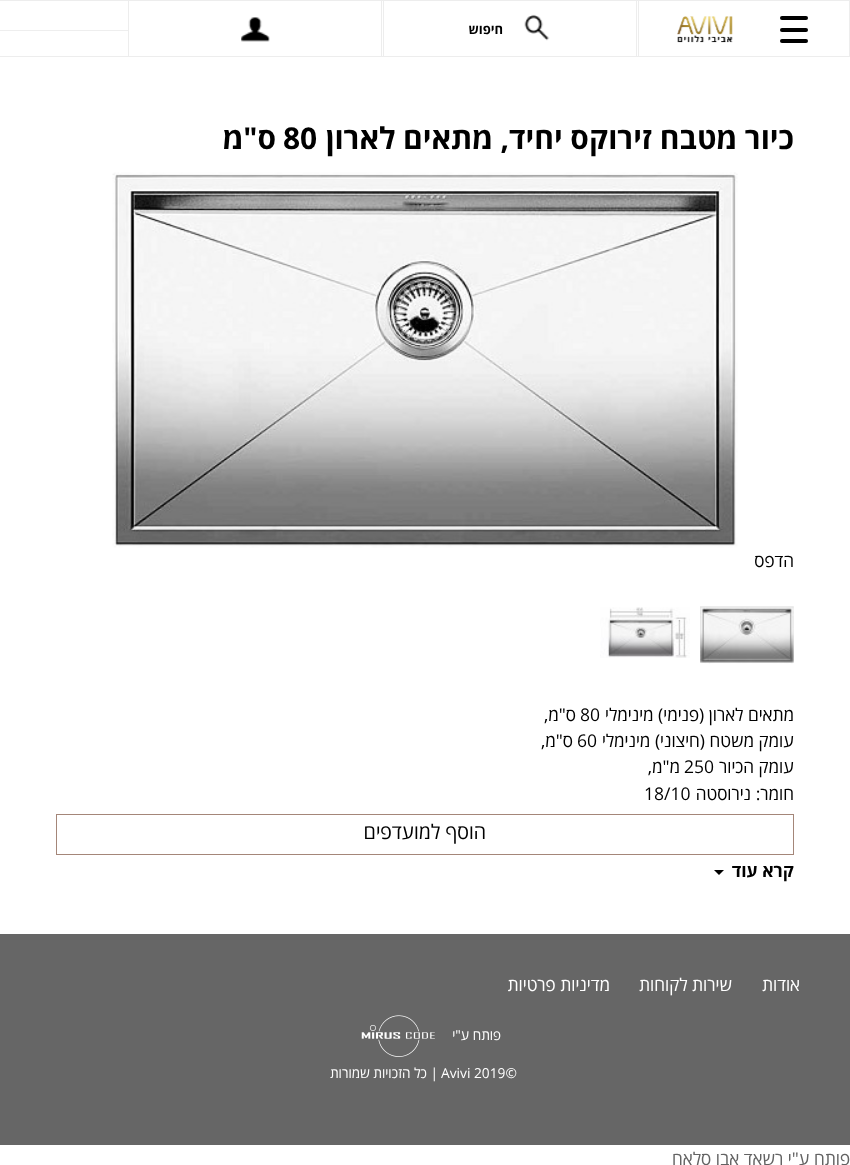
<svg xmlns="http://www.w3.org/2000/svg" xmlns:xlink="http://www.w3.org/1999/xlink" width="850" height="1165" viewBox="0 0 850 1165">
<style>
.cls-1{font:bold 13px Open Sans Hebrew;direction:rtl;fill:#000000}
.cls-2{font:bold 30px Open Sans Hebrew;direction:rtl;fill:#000000}
.cls-3{font:bold 30px Open Sans Hebrew;fill:#000000}
.cls-4{font:17.5px Open Sans Hebrew;direction:rtl;fill:#000000}
.cls-5{font:17.5px Open Sans Hebrew;fill:#000000}
.cls-6{font:20px Open Sans Hebrew;direction:rtl;fill:#000000}
.cls-7{font:bold 17.5px Open Sans Hebrew;direction:rtl;fill:#000000}
.cls-8{font:17.5px Open Sans Hebrew;direction:rtl;fill:#ffffff}
.cls-9{font:13.75px Open Sans Hebrew;direction:rtl;fill:#ffffff}
.cls-10{font:13.75px Open Sans Hebrew;fill:#ffffff}
.cls-11{font:17.5px Open Sans Hebrew;direction:rtl;fill:#636363}
</style>
<rect width="100%" height="100%" fill="#ffffff"/>
<rect fill="#eeeeee" x="0" y="30" width="128" height="1"/>
<rect fill="#ededed" x="0" y="0" width="850" height="1"/>
<rect fill="#ededed" x="0" y="56" width="850" height="1"/>
<rect fill="#ededed" x="849" y="1" width="1" height="55"/>
<rect fill="#ededed" x="638" y="1" width="1" height="55"/>
<rect fill="#000000" x="780" y="16" width="28" height="4" rx="2"/>
<rect fill="#000000" x="780" y="28" width="28" height="4" rx="2"/>
<rect fill="#000000" x="780" y="39" width="28" height="4" rx="2"/>
<rect fill="#ededed" x="381" y="1" width="1" height="55"/>
<rect fill="#ededed" x="128" y="1" width="1" height="55"/>
<image xlink:href="image0.png" x="241" y="17" width="29" height="25"/>
<image xlink:href="image1.png" x="677" y="16" width="56" height="27"/>
<rect fill="#ededed" x="636" y="1" width="1" height="55"/>
<rect fill="#ededed" x="383" y="1" width="1" height="55"/>
<image xlink:href="image2.png" x="524" y="14" width="26" height="27"/>
<image xlink:href="image3.png" x="112" y="172" width="626" height="376"/>
<image xlink:href="image4.png" x="700" y="606" width="94" height="58"/>
<image xlink:href="image5.png" x="600" y="607" width="90" height="51"/>
<rect fill="none" stroke="#a48679" x="56.5" y="814.5" width="737" height="40"/>
<path fill="#000000" d="M714 870H724L719 875Z"/>
<rect fill="#666666" x="0" y="934" width="850" height="211"/>
<image xlink:href="image6.png" x="361" y="1015" width="74" height="42"/>
<text class="cls-1" x="503" y="34">חיפוש</text>
<text class="cls-2" x="794" y="149">כיור מטבח זירוקס יחיד, מתאים לארון</text>
<text class="cls-3" x="283" y="149">80</text>
<text class="cls-2" x="276" y="149">ס"מ</text>
<text class="cls-4" x="794" y="567">הדפס</text>
<text class="cls-4" x="794" y="721">מתאים לארון (פנימי) מינימלי</text>
<text class="cls-5" x="580" y="721">80</text>
<text class="cls-4" x="576" y="721">ס"מ,</text>
<text class="cls-4" x="794" y="747">עומק משטח (חיצוני) מינימלי</text>
<text class="cls-5" x="577" y="747">60</text>
<text class="cls-4" x="573" y="747">ס"מ,</text>
<text class="cls-4" x="794" y="773">עומק הכיור</text>
<text class="cls-5" x="684" y="773">250</text>
<text class="cls-4" x="680" y="773">מ"מ,</text>
<text class="cls-4" x="794" y="800">חומר: נירוסטה</text>
<text class="cls-5" x="644" y="800">18/10</text>
<text class="cls-6" x="486" y="839">הוסף למועדפים</text>
<text class="cls-7" x="794" y="877">קרא עוד</text>
<text class="cls-8" x="800" y="991">אודות</text>
<text class="cls-8" x="732" y="991">שירות לקוחות</text>
<text class="cls-8" x="610" y="991">מדיניות פרטיות</text>
<text class="cls-9" x="501" y="1040">פותח ע"י</text>
<text class="cls-10" x="441" y="1078">Avivi 2019©</text>
<text class="cls-9" x="438" y="1078">| כל הזכויות שמורות</text>
<text class="cls-11" x="850" y="1165">פותח ע"י רשאד אבו סלאח</text>
</svg>
